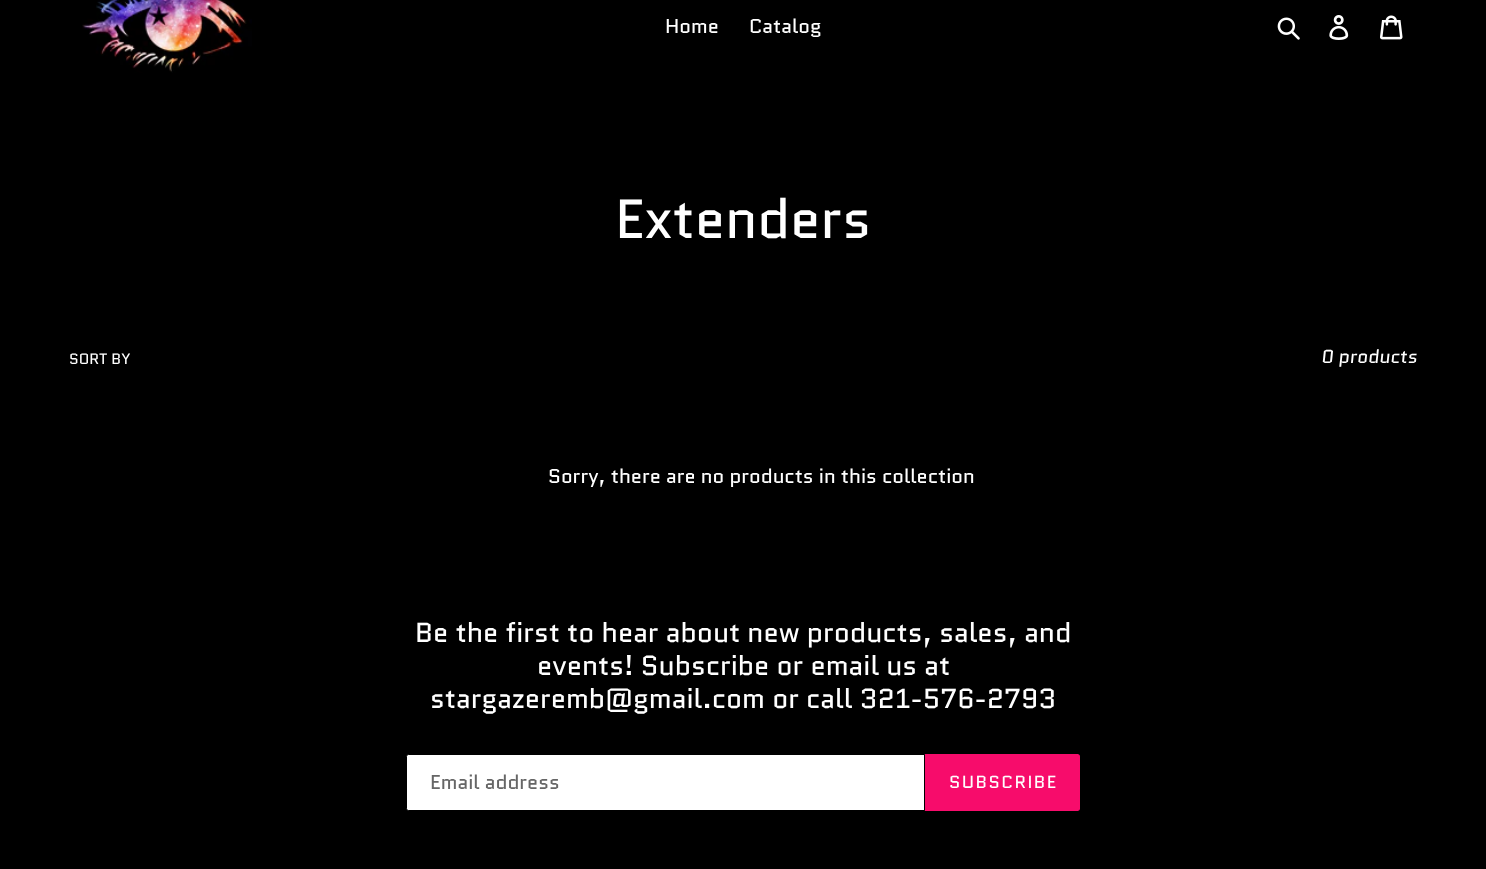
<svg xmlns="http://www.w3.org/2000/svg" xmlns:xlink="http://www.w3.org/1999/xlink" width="1486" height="869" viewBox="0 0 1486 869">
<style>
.cls-1{font:20px Quantico;fill:#ffffff}
.cls-2{font:55px Quantico;fill:#ffffff}
.cls-3{font:15px Quantico;fill:#ffffff}
.cls-4{font:italic 18.75px Quantico;fill:#ffffff}
.cls-5{font:27.5px Quantico;fill:#ffffff}
.cls-6{font:20px Quantico;fill:#666666}
.cls-7{font:17.5px Quantico;letter-spacing:1.5px;fill:#ffffff}
</style>
<rect width="100%" height="100%" fill="#000000"/>
<image xlink:href="image0.png" x="82" y="0" width="170" height="73"/>
<image xlink:href="image1.png" x="1277" y="17" width="23" height="23"/>
<image xlink:href="image2.png" x="1329" y="15" width="20" height="25"/>
<image xlink:href="image3.png" x="1380" y="15" width="23" height="25"/>
<path fill="#ffffff" stroke="#000000" d="M408.5 754.5H924.5V810.5H408.5C407.5 810.5 406.5 809.5 406.5 808.5V756.5C406.5 755.5 407.5 754.5 408.5 754.5Z"/>
<path fill="#f70c6b" d="M925 754H1077.5C1079 754 1080 755 1080 756.5V808.5C1080 810 1079 811 1077.5 811H925Z"/>
<text class="cls-1" x="665" y="33">Home</text>
<text class="cls-1" x="749" y="33">Catalog</text>
<text class="cls-2" x="615" y="238">Extenders</text>
<text class="cls-3" x="69" y="364">SORT BY</text>
<text class="cls-4" x="1321" y="363">0 products</text>
<text class="cls-1" x="548" y="483">Sorry, there are no products in this collection</text>
<text class="cls-5" x="415" y="642">Be the first to hear about new products, sales, and</text>
<text class="cls-5" x="537" y="675">events! Subscribe or email us at</text>
<text class="cls-5" x="430" y="708">stargazeremb@gmail.com or call 321-576-2793</text>
<text class="cls-6" x="430" y="789">Email address</text>
<text class="cls-7" x="949" y="788">SUBSCRIBE</text>
</svg>
